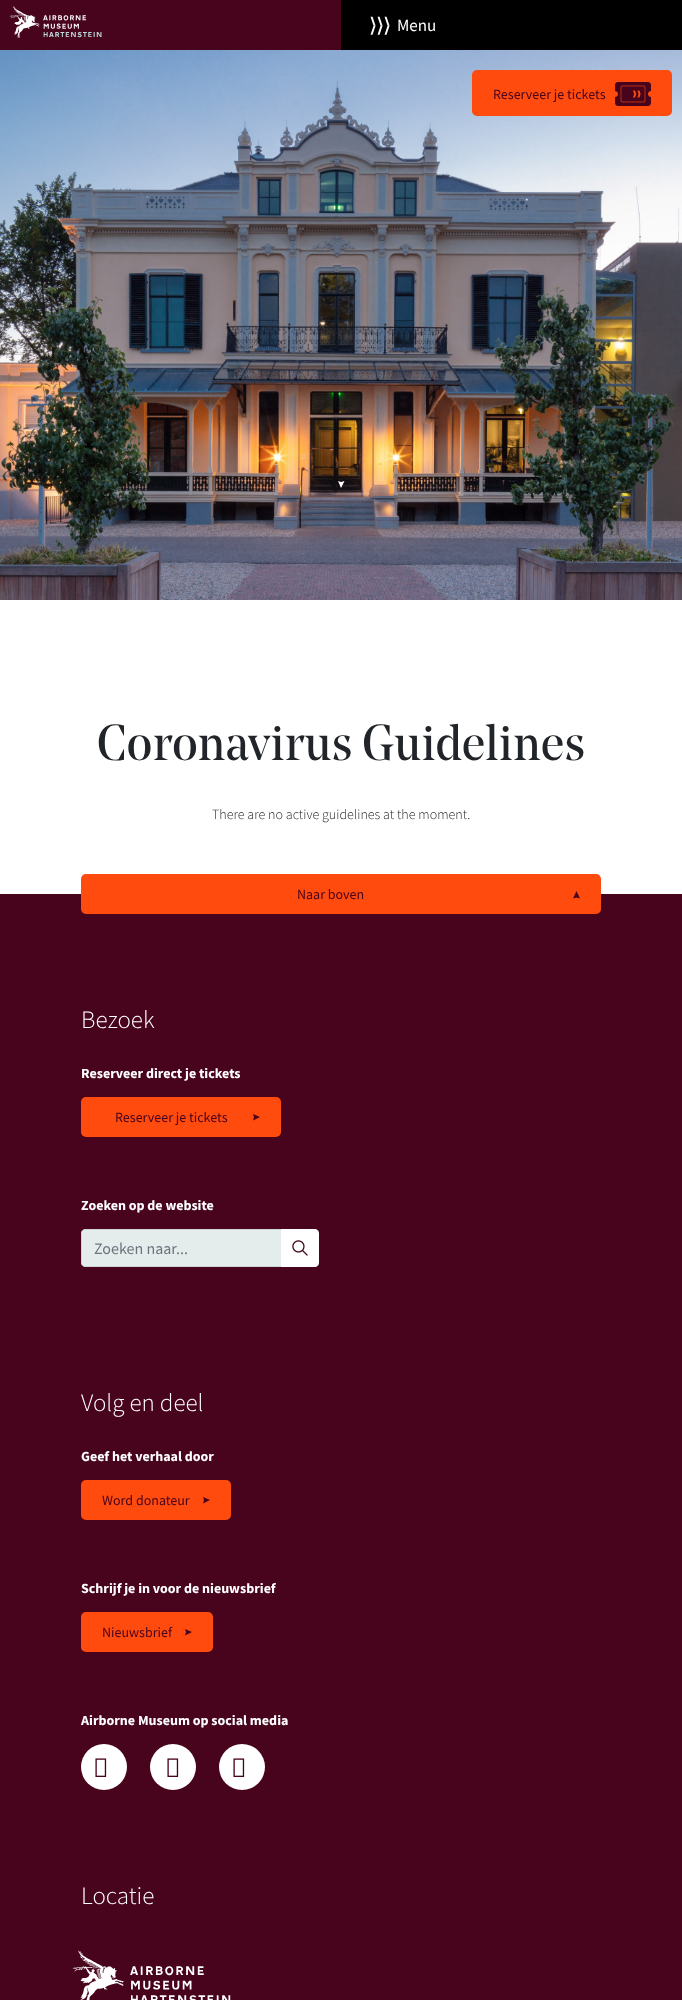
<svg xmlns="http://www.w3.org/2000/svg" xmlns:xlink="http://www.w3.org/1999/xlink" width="682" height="2000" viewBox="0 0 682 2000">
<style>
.cls-1{font:17px Source Sans Pro;fill:#ffffff}
.cls-2{font:14px Source Sans Pro;fill:#48041c}
.cls-3{font:50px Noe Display;fill:#212529}
.cls-4{font:300 14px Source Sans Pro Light;fill:#212529}
.cls-5{font:300 25px Source Sans Pro Light;fill:#ffffff}
.cls-6{font:bold 14px Source Sans Pro;fill:#ffffff}
.cls-7{font:16px Source Sans Pro;fill:#6c757d}
</style>
<rect width="100%" height="100%" fill="#ffffff"/>
<rect fill="#48041c" x="0" y="0" width="341" height="50"/>
<image xlink:href="image0.png" x="9" y="6" width="93" height="32"/>
<rect fill="#000000" x="341" y="0" width="341" height="50"/>
<image xlink:href="image1.png" x="370" y="16" width="20" height="19"/>
<image xlink:href="image3.png" x="0" y="50" width="682" height="550"/>
<rect fill="#ff4b0d" x="472" y="70" width="200" height="46" rx="5"/>
<image xlink:href="image2.png" x="615" y="82" width="36" height="24"/>
<path fill="#ffffff" d="M338 481L341 482L344.5 481L341 488Z"/>
<rect fill="#48041c" x="0" y="894" width="682" height="1106"/>
<rect fill="#ff4b0d" x="81" y="874" width="520" height="40" rx="5"/>
<path fill="#48041c" d="M580 898.5L576.5 897.5L573 898.5L576.5 891Z"/>
<rect fill="#ff4b0d" x="81" y="1097" width="200" height="40" rx="5"/>
<path fill="#48041c" d="M253 1114L254 1117L253 1120.5L260 1117Z"/>
<path fill="#e5ecec" stroke="#ced4da" d="M85 1229.5H281.5V1266.5H85C83 1266.5 81.5 1265 81.5 1263V1233C81.5 1231 83 1229.5 85 1229.5Z"/>
<path fill="#ffffff" d="M281 1229H315C317 1229 319 1231 319 1233V1263C319 1265 317 1267 315 1267H281Z"/>
<image xlink:href="image4.png" x="292" y="1240" width="16" height="16"/>
<rect fill="#ff4b0d" x="81" y="1480" width="150" height="40" rx="5"/>
<path fill="#48041c" d="M203 1497L204 1500L203 1503.5L210 1500Z"/>
<rect fill="#ff4b0d" x="81" y="1612" width="132" height="40" rx="5"/>
<path fill="#48041c" d="M185 1629L186 1632L185 1635.5L192 1632Z"/>
<circle fill="#ffffff" cx="104" cy="1767" r="23"/>
<image xlink:href="image5.png" x="95" y="1758" width="12" height="19"/>
<circle fill="#ffffff" cx="173" cy="1767" r="23"/>
<image xlink:href="image5.png" x="167" y="1758" width="12" height="19"/>
<circle fill="#ffffff" cx="242" cy="1767" r="23"/>
<image xlink:href="image5.png" x="233" y="1758" width="12" height="19"/>
<image xlink:href="image6.png" x="72" y="1950" width="159" height="50"/>
<text class="cls-1" x="397" y="31">Menu</text>
<text class="cls-2" x="493" y="99">Reserveer je tickets</text>
<text class="cls-3" x="97" y="760">Coronavirus Guidelines</text>
<text class="cls-4" x="212" y="819">There are no active guidelines at the moment.</text>
<text class="cls-2" x="297" y="899">Naar boven</text>
<text class="cls-5" x="81" y="1028">Bezoek</text>
<text class="cls-6" x="81" y="1078">Reserveer direct je tickets</text>
<text class="cls-2" x="115" y="1122">Reserveer je tickets</text>
<text class="cls-6" x="81" y="1210">Zoeken op de website</text>
<text class="cls-7" x="94" y="1254">Zoeken naar...</text>
<text class="cls-5" x="81" y="1411">Volg en deel</text>
<text class="cls-6" x="81" y="1461">Geef het verhaal door</text>
<text class="cls-2" x="102" y="1505">Word donateur</text>
<text class="cls-6" x="81" y="1593">Schrijf je in voor de nieuwsbrief</text>
<text class="cls-2" x="102" y="1637">Nieuwsbrief</text>
<text class="cls-6" x="81" y="1725">Airborne Museum op social media</text>
<text class="cls-5" x="81" y="1904">Locatie</text>
</svg>
